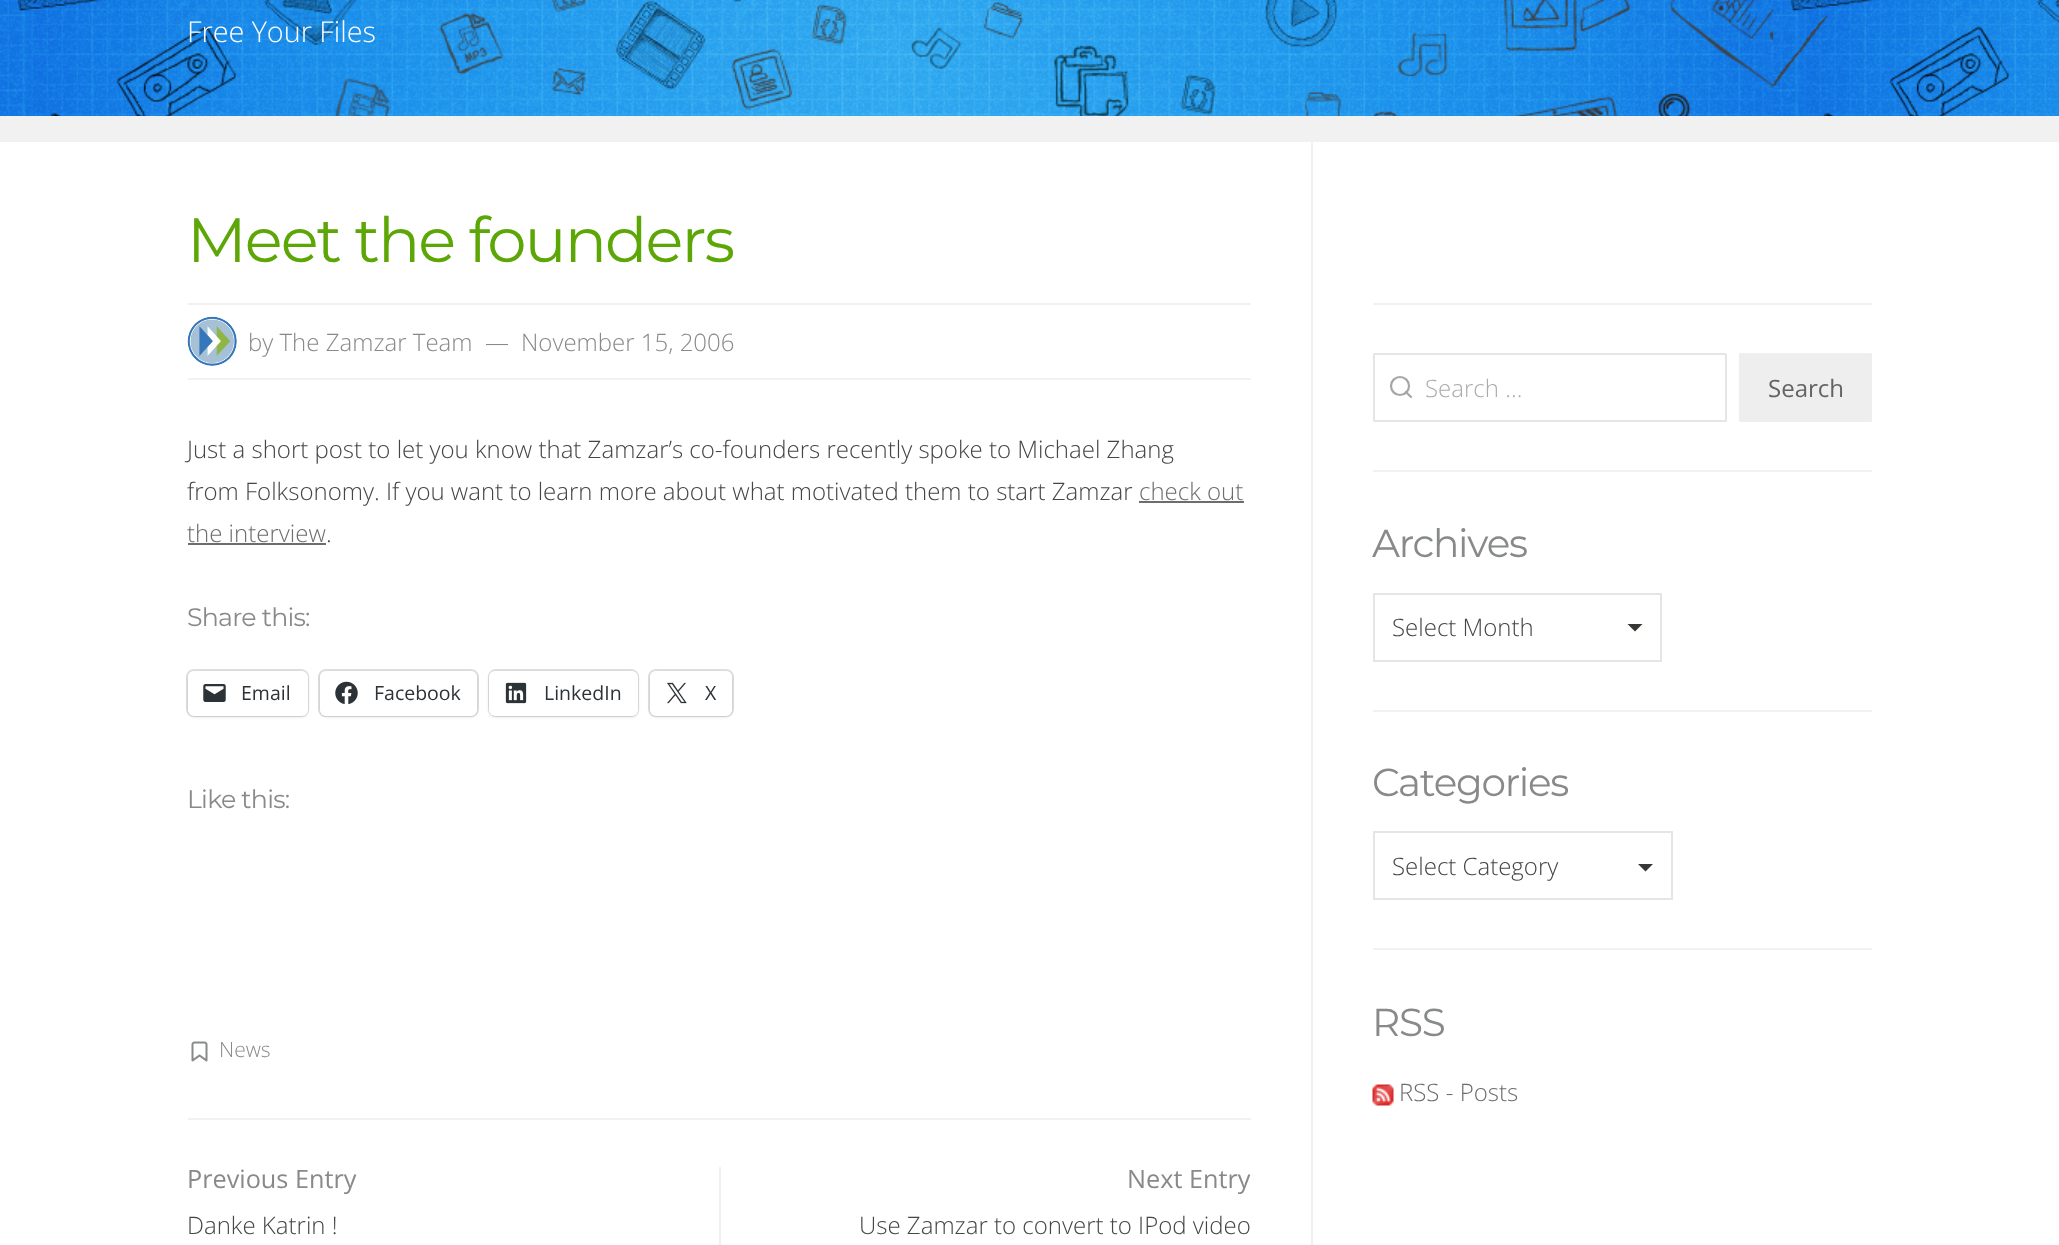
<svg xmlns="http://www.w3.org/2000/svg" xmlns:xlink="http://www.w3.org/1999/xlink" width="2059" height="1245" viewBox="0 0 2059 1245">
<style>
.cls-1{font:300 28.75px Open Sans;fill:#ffffff}
.cls-2{font:100 62.5px Montserrat;letter-spacing:-1.9px;fill:#5ca605}
.cls-3{font:300 24px Open Sans;fill:#888989}
.cls-4{font:300 24px Open Sans;fill:#464646}
.cls-5{font:300 24px Open Sans;fill:#6d6d6d}
.cls-6{font:100 25.25px Montserrat;letter-spacing:-0.75px;fill:#888989}
.cls-7{font:19.5px Open Sans;fill:#2c3338}
.cls-8{font:300 21px Open Sans;fill:#888989}
.cls-9{font:25.25px Open Sans;fill:#888989}
.cls-10{font:300 24px Open Sans;fill:#acacac}
.cls-11{font:24px Open Sans;fill:#636363}
.cls-12{font:100 39px Montserrat;letter-spacing:-1.25px;fill:#888989}
</style>
<rect width="100%" height="100%" fill="#ffffff"/>
<image xlink:href="image0.png" x="0" y="0" width="2059" height="116"/>
<rect fill="#f1f1f1" x="1311" y="141" width="2" height="1104"/>
<rect fill="#f1f1f1" x="0" y="116" width="2059" height="26"/>
<rect fill="#f1f1f1" x="188" y="1118" width="1063" height="2"/>
<rect fill="#f1f1f1" x="188" y="303" width="1063" height="2"/>
<rect fill="#f1f1f1" x="188" y="378" width="1063" height="2"/>
<image xlink:href="image1.png" x="187" y="316" width="50" height="50"/>
<rect fill="#6d6d6d" x="1139" y="501" width="105" height="2"/>
<rect fill="#6d6d6d" x="188" y="543" width="138" height="2"/>
<rect fill="none" stroke="#e0e0e0" stroke-width="2" x="187" y="670" width="121" height="46" rx="7"/>
<rect fill="#000000" fill-opacity="0.12" filter="blur(1.5px)" x="188" y="672" width="120" height="45" rx="6"/>
<rect fill="#ffffff" x="188" y="671" width="120" height="45" rx="6"/>
<image xlink:href="image2.png" x="203" y="684" width="23" height="18"/>
<rect fill="none" stroke="#e0e0e0" stroke-width="2" x="319" y="670" width="159" height="46" rx="7"/>
<rect fill="#000000" fill-opacity="0.12" filter="blur(1.5px)" x="320" y="672" width="157" height="45" rx="6"/>
<rect fill="#ffffff" x="320" y="671" width="157" height="45" rx="6"/>
<image xlink:href="image3.png" x="335" y="681" width="23" height="24"/>
<rect fill="none" stroke="#e0e0e0" stroke-width="2" x="489" y="670" width="149" height="46" rx="7"/>
<rect fill="#000000" fill-opacity="0.12" filter="blur(1.5px)" x="489" y="672" width="149" height="45" rx="6"/>
<rect fill="#ffffff" x="489" y="671" width="149" height="45" rx="6"/>
<image xlink:href="image4.png" x="505" y="682" width="22" height="22"/>
<rect fill="none" stroke="#e0e0e0" stroke-width="2" x="649" y="670" width="84" height="46" rx="7"/>
<rect fill="#000000" fill-opacity="0.12" filter="blur(1.5px)" x="650" y="672" width="82" height="45" rx="6"/>
<rect fill="#ffffff" x="650" y="671" width="82" height="45" rx="6"/>
<image xlink:href="image5.png" x="667" y="682" width="20" height="22"/>
<image xlink:href="image6.png" x="191" y="1041" width="17" height="21"/>
<rect fill="#f1f1f1" x="719" y="1167" width="2" height="78"/>
<rect fill="#f1f1f1" x="1373" y="303" width="499" height="2"/>
<rect fill="none" stroke="#e5e5e5" stroke-width="2" x="1374" y="354" width="352" height="67" rx="0.5"/>
<circle fill="none" stroke="#a6a6a6" stroke-width="2.2" cx="1400" cy="386" r="9"/>
<path fill="none" stroke="#a6a6a6" stroke-width="2.2" stroke-linecap="round" stroke-linejoin="round" d="M1411 397L1406 392"/>
<rect fill="#eeeeee" x="1739" y="353" width="133" height="69" rx="1.5"/>
<rect fill="#f1f1f1" x="1373" y="470" width="499" height="2"/>
<path fill="#353833" d="M1627.5 624H1642.5L1635 631.5Z"/>
<rect fill="none" stroke="#e5e5e5" stroke-width="2" x="1374" y="594" width="287" height="67"/>
<rect fill="#f1f1f1" x="1373" y="710" width="499" height="2"/>
<path fill="#353833" d="M1638 864H1653L1645.5 871.5Z"/>
<rect fill="none" stroke="#e5e5e5" stroke-width="2" x="1374" y="832" width="298" height="67"/>
<rect fill="#f1f1f1" x="1373" y="948" width="499" height="2"/>
<image xlink:href="image7.png" x="1372" y="1084" width="22" height="22"/>
<text class="cls-1" x="187" y="42">Free Your Files</text>
<text class="cls-2" x="187" y="262">Meet the founders</text>
<text class="cls-3" x="248" y="351">by The Zamzar Team</text>
<text class="cls-3" x="485" y="351">—</text>
<text class="cls-3" x="521" y="351">November 15, 2006</text>
<text class="cls-4"><tspan x="187" y="458">Just a short post to let you know that Zamzar’s co-founders recently spoke to Michael Zhang</tspan><tspan x="187" y="500">from Folksonomy. If you want to learn more about what motivated them to start Zamzar</tspan></text>
<text class="cls-5" x="1139" y="500">check out</text>
<text class="cls-5" x="187" y="542">the interview</text>
<text class="cls-4" x="326" y="542">.</text>
<text class="cls-6" x="187" y="626">Share this:</text>
<text class="cls-7" x="241" y="700">Email</text>
<text class="cls-7" x="374" y="700">Facebook</text>
<text class="cls-7" x="544" y="700">LinkedIn</text>
<text class="cls-7" x="705" y="700">X</text>
<text class="cls-6" x="187" y="808">Like this:</text>
<text class="cls-8" x="219" y="1057">News</text>
<text class="cls-9" x="187" y="1188">Previous Entry</text>
<text class="cls-4" x="187" y="1234">Danke Katrin !</text>
<text class="cls-9" x="1127" y="1188">Next Entry</text>
<text class="cls-4" x="859" y="1234">Use Zamzar to convert to IPod video</text>
<text class="cls-10" x="1425" y="397">Search …</text>
<text class="cls-11" x="1768" y="397">Search</text>
<text class="cls-12" x="1372" y="557">Archives</text>
<text class="cls-4" x="1392" y="636">Select Month</text>
<text class="cls-12" x="1372" y="796">Categories</text>
<text class="cls-4" x="1392" y="875">Select Category</text>
<text class="cls-12" x="1372" y="1036">RSS</text>
<text class="cls-5" x="1399" y="1101">RSS - Posts</text>
</svg>
